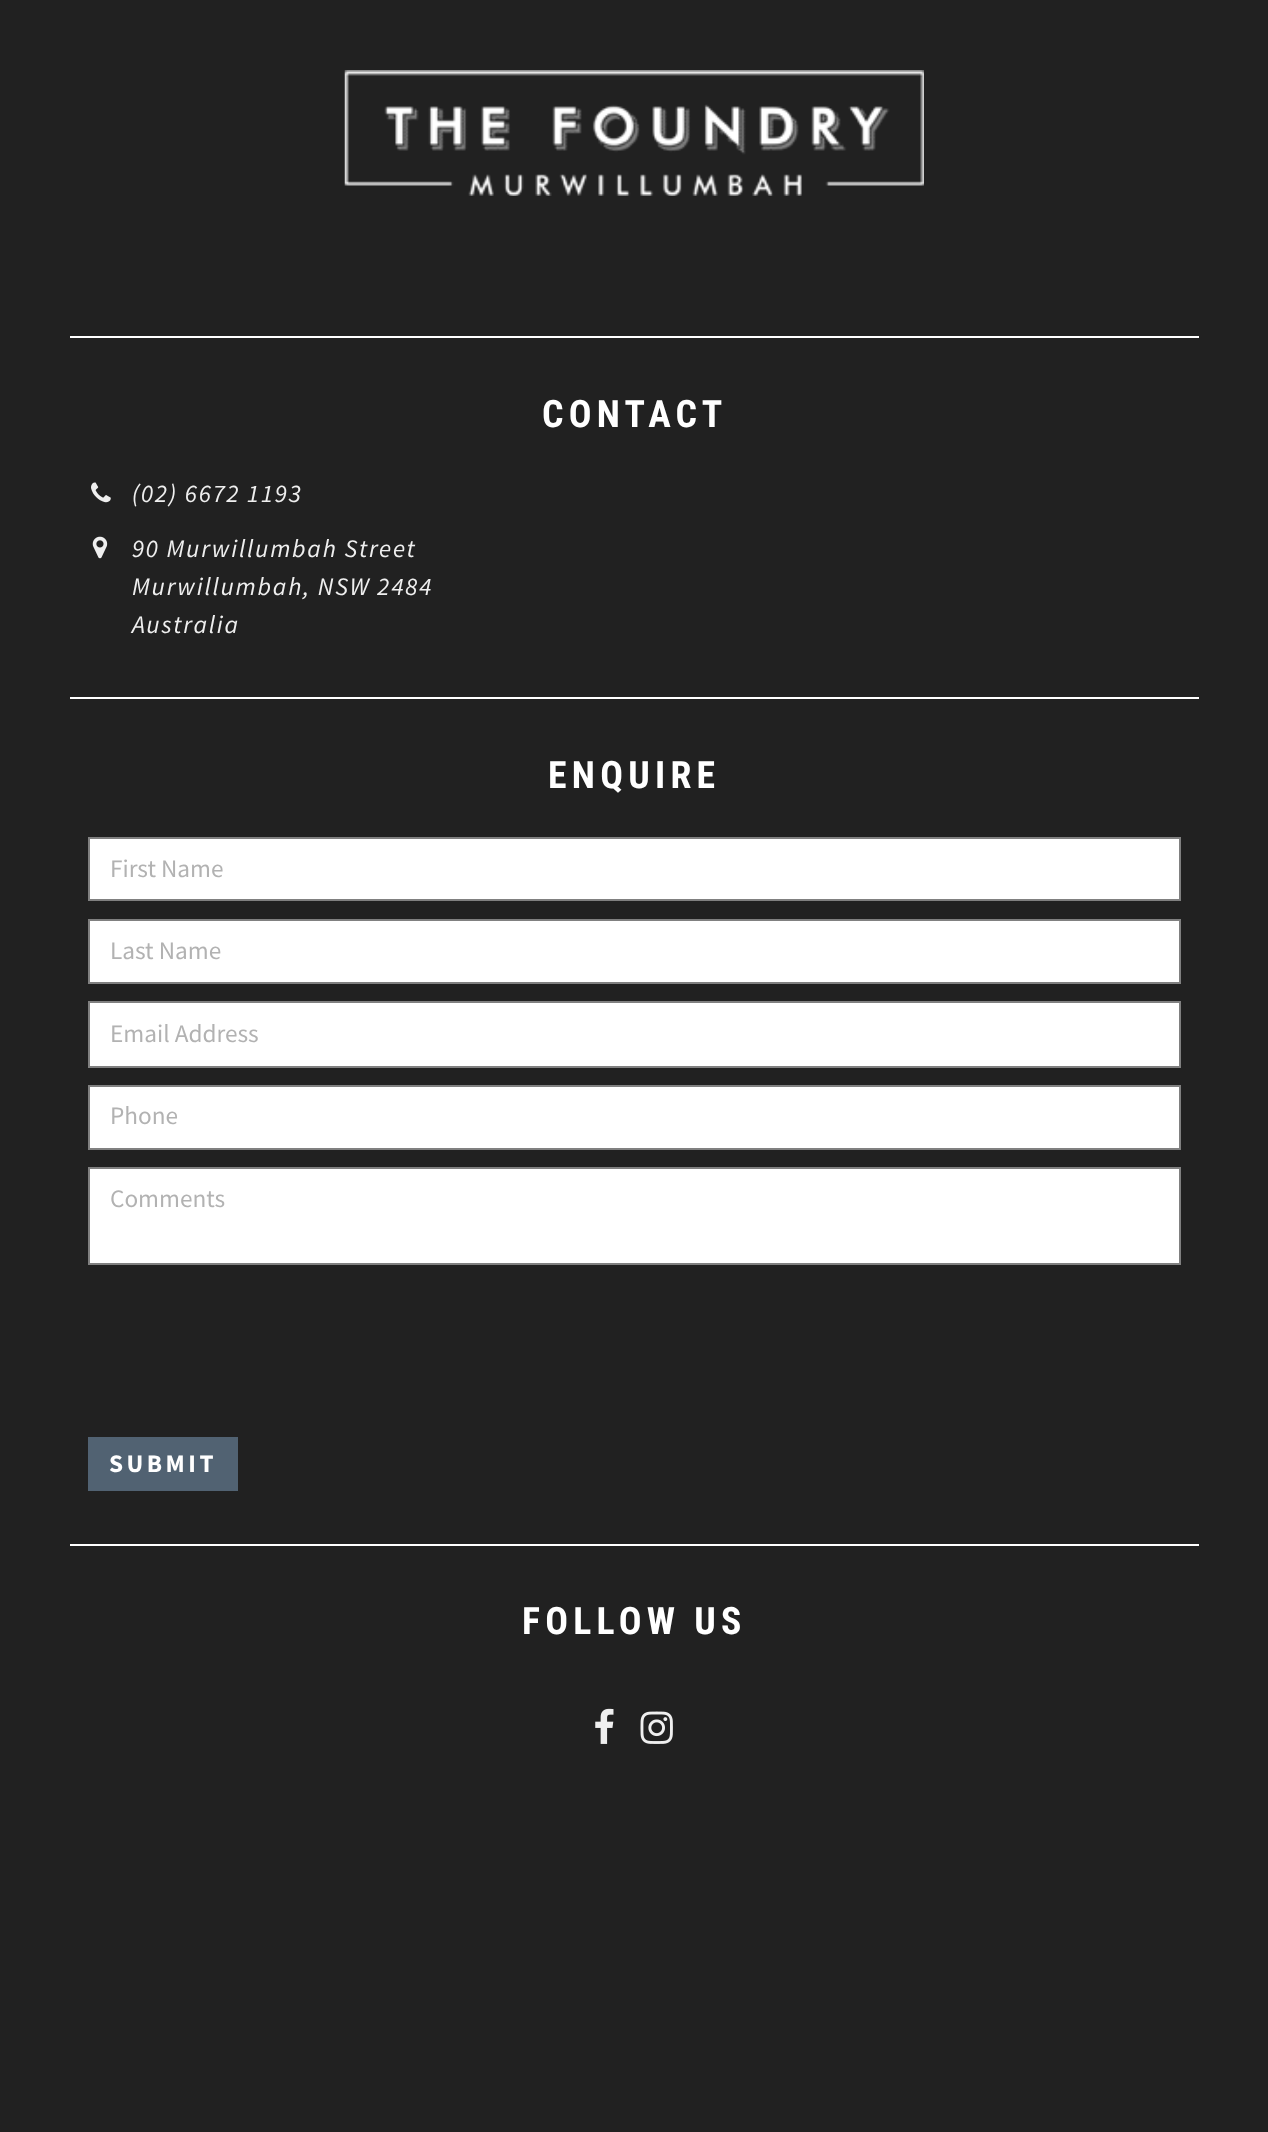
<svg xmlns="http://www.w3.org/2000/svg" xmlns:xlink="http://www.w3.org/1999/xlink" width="1268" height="2132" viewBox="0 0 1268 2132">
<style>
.cls-1{font:bold 37.75px Roboto Condensed;letter-spacing:5.25px;fill:#ffffff}
.cls-2{font:italic 25.25px Source Sans Pro;letter-spacing:1.75px;fill:#efefef}
.cls-3{font:25.25px Source Sans Pro;fill:#b2b2b2}
.cls-4{font:bold 25.25px Source Sans Pro;letter-spacing:3.5px;fill:#ffffff}
</style>
<rect width="100%" height="100%" fill="#212121"/>
<image xlink:href="image0.png" x="344" y="70" width="580" height="126"/>
<rect fill="#ffffff" x="70" y="336" width="1129" height="2"/>
<image xlink:href="image1.png" x="91" y="482" width="20" height="21"/>
<image xlink:href="image2.png" x="92" y="536" width="16" height="23"/>
<rect fill="#ffffff" x="70" y="697" width="1129" height="2"/>
<rect fill="#ffffff" stroke="#808080" stroke-width="2" x="89" y="838" width="1091" height="62"/>
<rect fill="#ffffff" stroke="#808080" stroke-width="2" x="89" y="920" width="1091" height="63"/>
<rect fill="#ffffff" stroke="#808080" stroke-width="2" x="89" y="1002" width="1091" height="65"/>
<rect fill="#ffffff" stroke="#808080" stroke-width="2" x="89" y="1086" width="1091" height="63"/>
<rect fill="#ffffff" stroke="#808080" stroke-width="2" x="89" y="1168" width="1091" height="96"/>
<rect fill="#516272" x="88" y="1437" width="150" height="54"/>
<rect fill="#ffffff" x="70" y="1544" width="1129" height="2"/>
<image xlink:href="image3.png" x="595" y="1708" width="19" height="36"/>
<image xlink:href="image4.png" x="640" y="1711" width="33" height="33"/>
<text class="cls-1" x="542" y="427">CONTACT</text>
<text class="cls-2" x="132" y="502">(02) 6672 1193</text>
<text class="cls-2"><tspan x="132" y="557">90 Murwillumbah Street</tspan><tspan x="132" y="595">Murwillumbah, NSW 2484</tspan><tspan x="132" y="633">Australia</tspan></text>
<text class="cls-1" x="548" y="788">ENQUIRE</text>
<text class="cls-3" x="110" y="877">First Name</text>
<text class="cls-3" x="110" y="959">Last Name</text>
<text class="cls-3" x="110" y="1042">Email Address</text>
<text class="cls-3" x="110" y="1124">Phone</text>
<text class="cls-3" x="110" y="1207">Comments</text>
<text class="cls-4" x="109" y="1472">SUBMIT</text>
<text class="cls-1" x="522" y="1634">FOLLOW US</text>
</svg>
